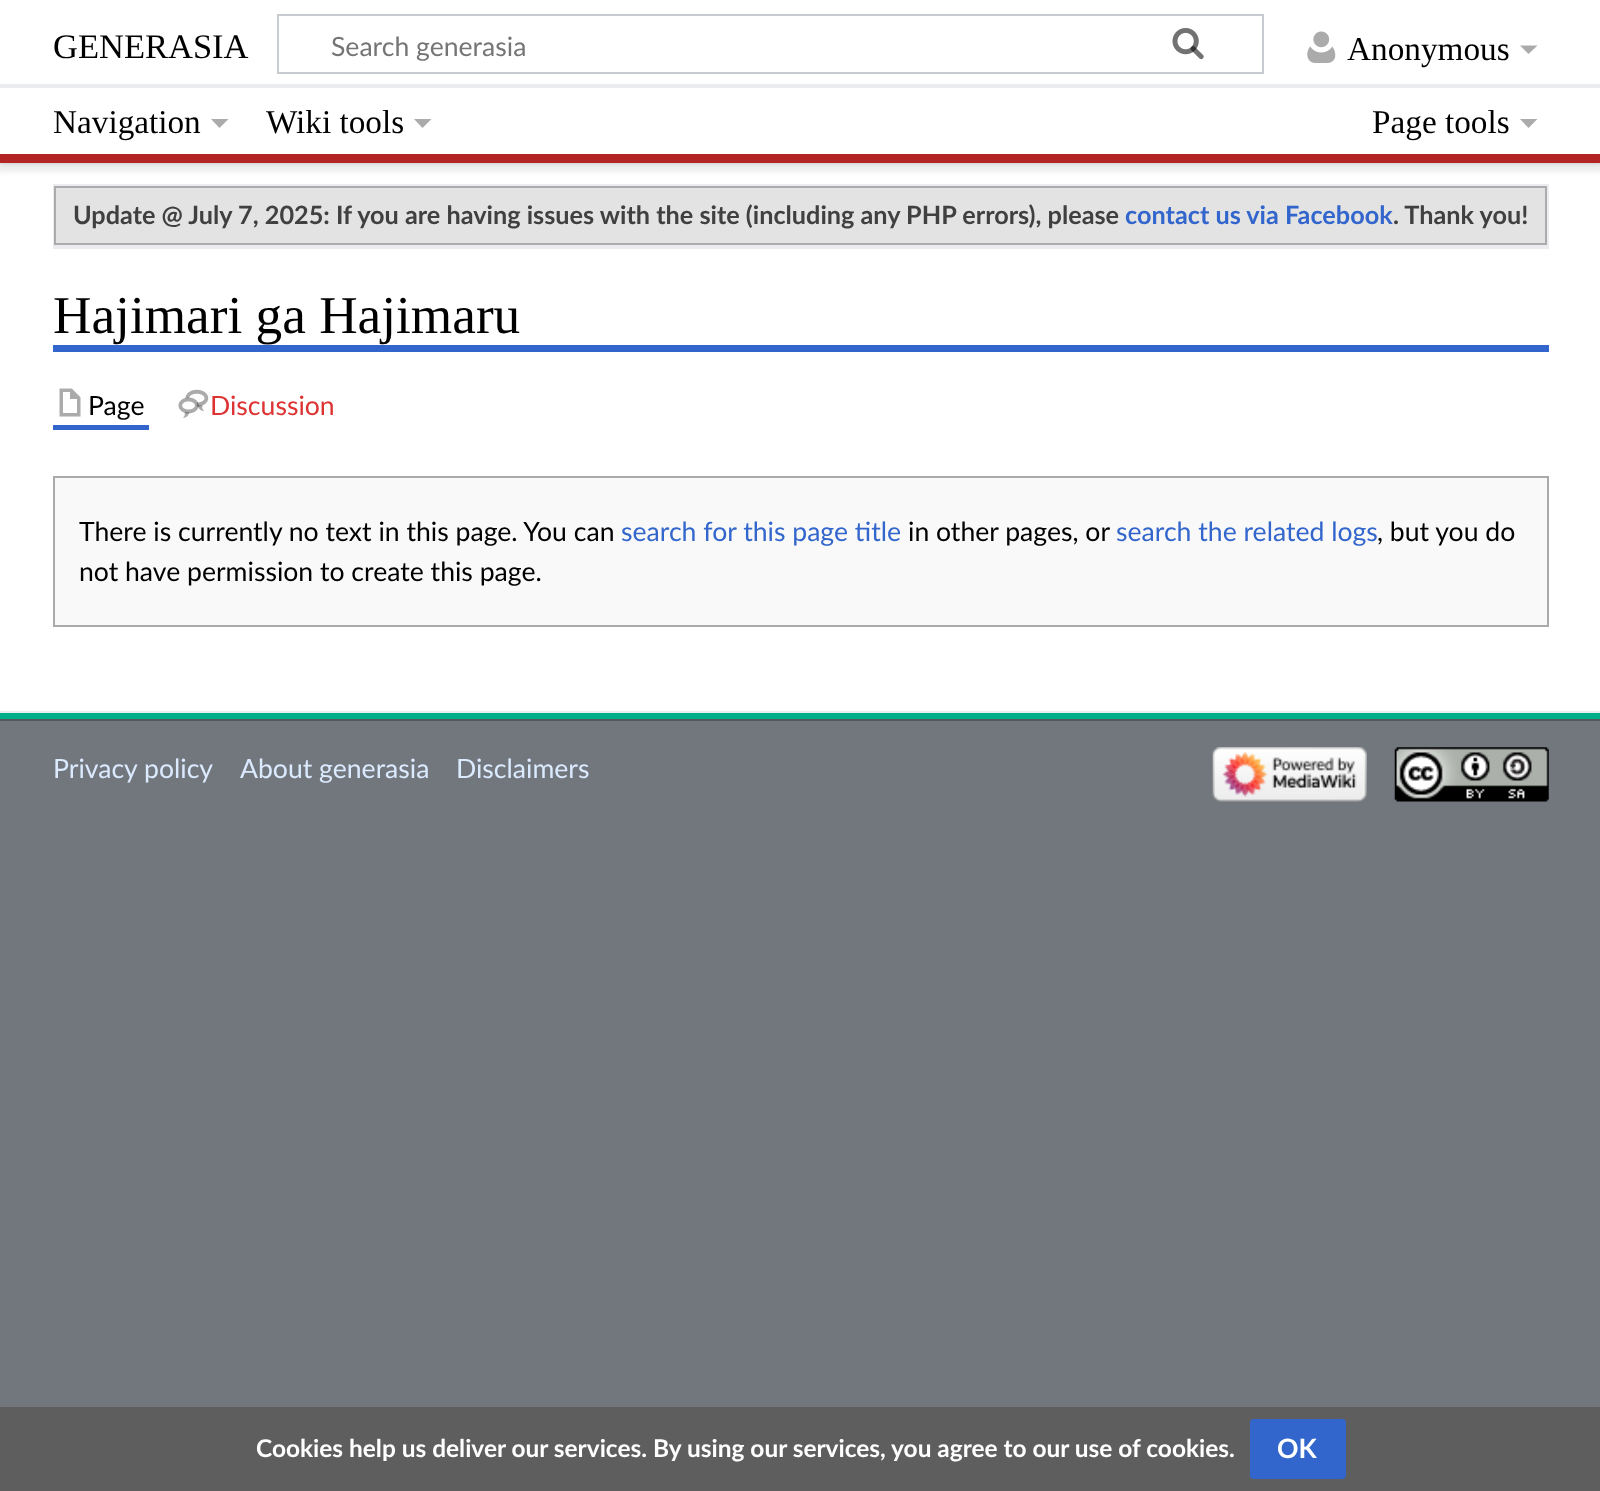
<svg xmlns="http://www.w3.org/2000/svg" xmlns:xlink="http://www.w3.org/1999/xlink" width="1600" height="1491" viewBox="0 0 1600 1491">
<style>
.cls-1{font:34.5px Liberation Serif;fill:#000000}
.cls-2{font:26.6px Lato;fill:#757575}
.cls-3{font:33.25px Liberation Serif;fill:#000000}
.cls-4{font:bold 25.25px Lato;fill:#404040}
.cls-5{font:bold 25.25px Lato;fill:#3366cc}
.cls-6{font:53.25px Liberation Serif;fill:#000000}
.cls-7{font:26.6px Lato;fill:#000000}
.cls-8{font:26.6px Lato;fill:#dd3333}
.cls-9{font:26.6px Lato;fill:#3366cc}
.cls-10{font:bold 24.45px Lato;fill:#ffffff}
.cls-11{font:bold 26.6px Lato;fill:#ffffff}
.cls-12{font:26.6px Lato;fill:#dbeaff}
</style>
<rect width="100%" height="100%" fill="#72777d"/>
<rect fill="#ffffff" x="0" y="163" width="1600" height="548"/>
<rect fill="#000000" fill-opacity="0.2" filter="blur(2px)" x="0" y="84" width="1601" height="79"/>
<rect fill="#000000" fill-opacity="0.07" filter="blur(2.5px)" x="-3" y="86" width="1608" height="86"/>
<rect fill="#ffffff" x="0" y="0" width="1600" height="84"/>
<rect fill="none" stroke="#c8ccd1" stroke-width="2" x="278" y="15" width="985" height="58"/>
<image xlink:href="image0.png" x="1172" y="28" width="32" height="32"/>
<image xlink:href="image1.png" x="1172" y="28" width="32" height="32"/>
<image xlink:href="image2.png" x="1307" y="31" width="29" height="32"/>
<path fill="#ababab" d="M1537.5 45.5L1528.5 54L1520 45.5Z"/>
<rect fill="#ffffff" x="0" y="88" width="1600" height="66"/>
<rect fill="#eaecf0" x="0" y="84" width="1600" height="4"/>
<rect fill="#b32424" x="0" y="154" width="1600" height="9"/>
<rect fill="#00af89" x="0" y="713" width="1600" height="6"/>
<path fill="#ababab" d="M228.5 119L219.5 128L211 119Z"/>
<path fill="#ababab" d="M431.5 119L422.5 128L414 119Z"/>
<path fill="#ababab" d="M1537.5 119L1528.5 128L1520 119Z"/>
<rect fill="#eaecf0" x="0" y="711" width="1600" height="2"/>
<rect fill="#eaecf0" x="53" y="184" width="1496" height="2"/>
<rect fill="#eaecf0" x="1547" y="184" width="2" height="65"/>
<rect fill="#eaecf0" x="53" y="245" width="1496" height="4"/>
<rect fill="#eaecf0" x="53" y="184" width="2" height="65"/>
<rect fill="#e3e3e3" stroke="#ababab" stroke-width="2" x="55" y="187" width="1491" height="57"/>
<rect fill="#3366cc" x="53" y="345" width="1496" height="7"/>
<rect fill="#3366cc" x="53" y="425" width="96" height="5"/>
<image xlink:href="image3.png" x="59" y="388" width="22" height="29"/>
<image xlink:href="image4.png" x="178" y="389" width="31" height="29"/>
<rect fill="#f9f9f9" stroke="#aaaaaa" stroke-width="2" x="54" y="477" width="1494" height="149"/>
<rect fill="#5e5e5f" x="0" y="1407" width="1600" height="84"/>
<rect fill="#3366cc" stroke="#3366cc" stroke-width="2" x="1251" y="1420" width="94" height="58" rx="3"/>
<rect fill="#54595d" x="0" y="719" width="1600" height="2"/>
<image xlink:href="image5.png" x="1212" y="747" width="155" height="55"/>
<image xlink:href="image6.png" x="1394" y="747" width="155" height="55"/>
<text class="cls-1" x="53" y="58">GENERASIA</text>
<text class="cls-2" x="331" y="56">Search generasia</text>
<text class="cls-3" x="1347" y="60">Anonymous</text>
<text class="cls-3" x="53" y="133">Navigation</text>
<text class="cls-3" x="266" y="133">Wiki tools</text>
<text class="cls-3" x="1372" y="133">Page tools</text>
<text class="cls-4" x="73" y="224">Update @ July 7, 2025: If you are having issues with the site (including any PHP errors), please</text>
<text class="cls-5" x="1125" y="224">contact us via Facebook</text>
<text class="cls-4" x="1393" y="224">. Thank you!</text>
<text class="cls-6" x="53" y="333">Hajimari ga Hajimaru</text>
<text class="cls-7" x="88" y="415">Page</text>
<text class="cls-8" x="210" y="415">Discussion</text>
<text class="cls-7" x="79" y="541">There is currently no text in this page. You can</text>
<text class="cls-9" x="621" y="541">search for this page title</text>
<text class="cls-7" x="908" y="541">in other pages, or</text>
<text class="cls-9" x="1116" y="541">search the related logs</text>
<text class="cls-7" x="1377" y="541">, but you do</text>
<text class="cls-7" x="79" y="581">not have permission to create this page.</text>
<text class="cls-10" x="256" y="1457">Cookies help us deliver our services. By using our services, you agree to our use of cookies.</text>
<text class="cls-11" x="1277" y="1458">OK</text>
<text class="cls-12" x="53" y="778">Privacy policy</text>
<text class="cls-12" x="240" y="778">About generasia</text>
<text class="cls-12" x="456" y="778">Disclaimers</text>
</svg>
